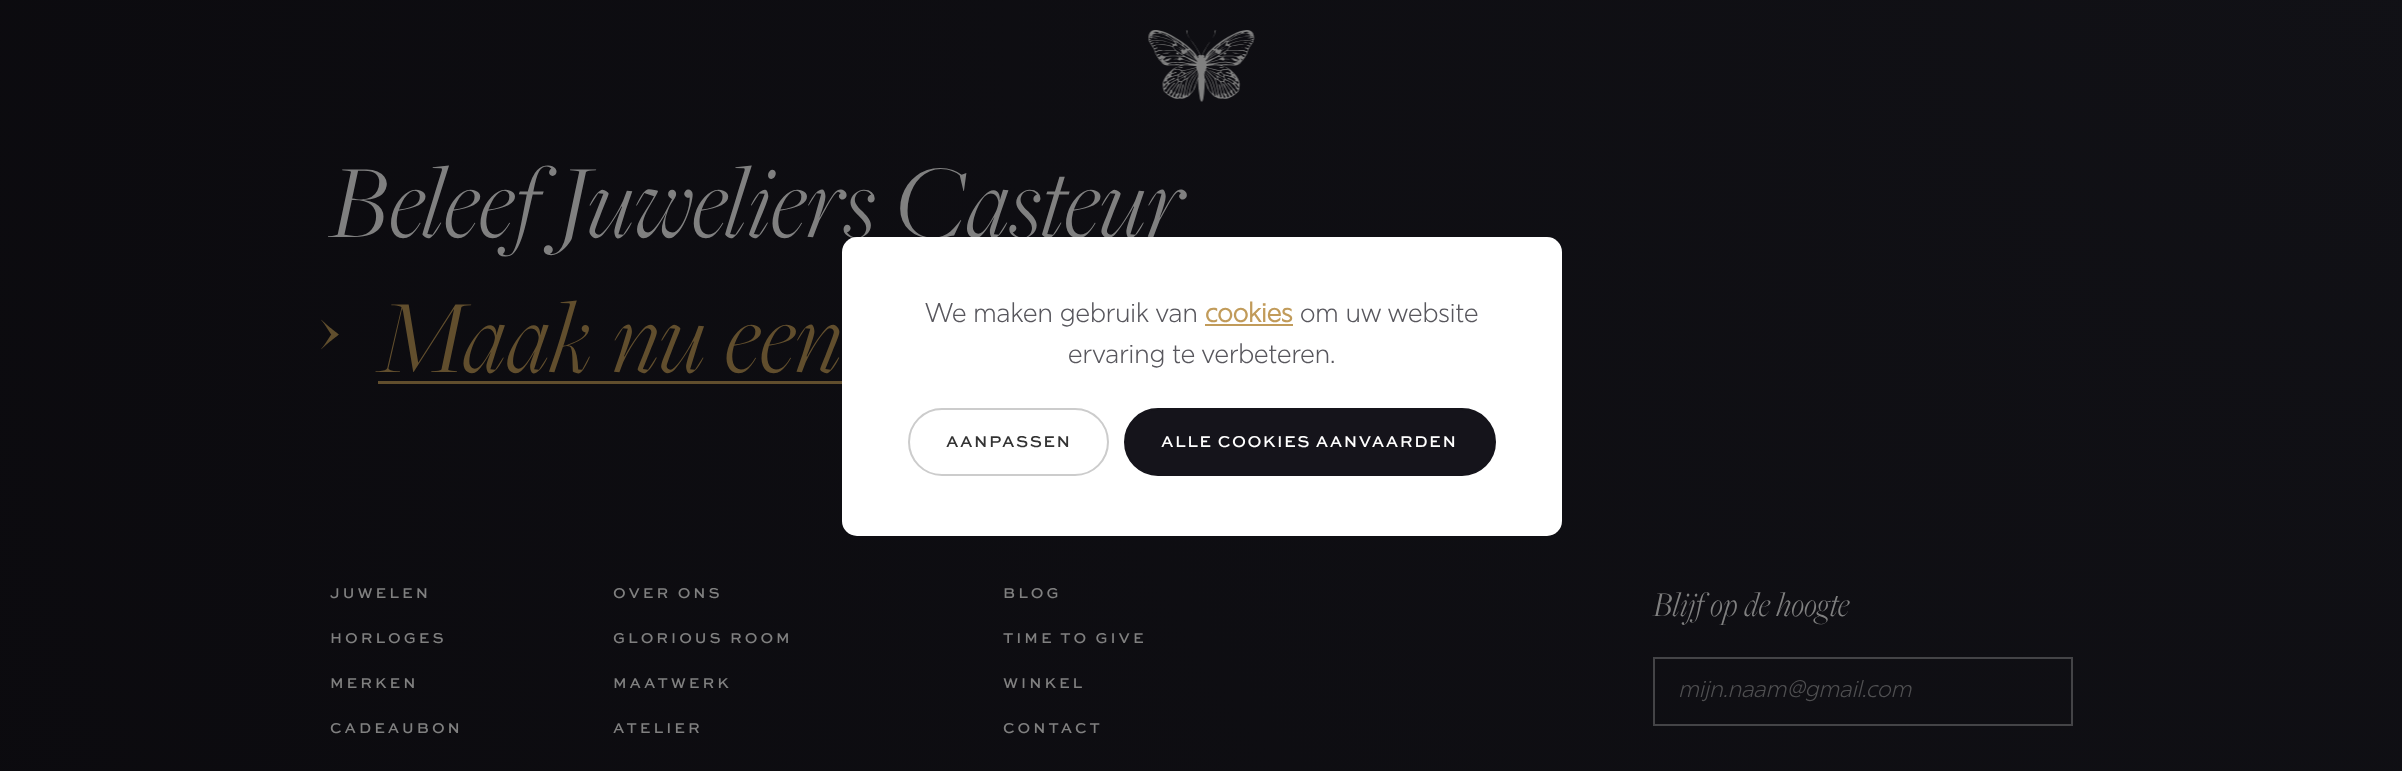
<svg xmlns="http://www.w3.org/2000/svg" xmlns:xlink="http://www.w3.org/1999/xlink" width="2402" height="771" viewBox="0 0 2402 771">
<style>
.cls-1{font:italic 300 108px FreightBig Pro;fill:#808080}
.cls-2{font:italic 300 108px FreightBig Pro;fill:#614e2d}
.cls-3{font:500 15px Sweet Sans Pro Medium;letter-spacing:3px;fill:#808080}
.cls-4{font:italic 300 36px FreightBig Pro;fill:#808080}
.cls-5{font:italic 300 24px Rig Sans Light;fill:#4f4f51}
.cls-6{font:300 27px Rig Sans Light;fill:#58575d}
.cls-7{font:bold 27px Rig Sans Light;fill:#c19b5a}
.cls-8{font:500 16.5px Sweet Sans Pro Medium;letter-spacing:1.5px;fill:#333333}
.cls-9{font:500 16.5px Sweet Sans Pro Medium;letter-spacing:1.5px;fill:#ffffff}
</style>
<defs>
<radialGradient id="g1" gradientUnits="userSpaceOnUse" cx="2403" cy="-78" r="2798"><stop offset="0" stop-color="#111116"/><stop offset="1" stop-color="#0b0a0e"/></radialGradient>
<clipPath id="clip1"><rect x="1679" y="680" width="369" height="24"/></clipPath>
</defs>
<rect width="100%" height="100%" fill="#ffffff"/>
<rect fill="url(#g1)" x="0" y="0" width="2402" height="771"/>
<image xlink:href="image0.png" x="1148" y="30" width="107" height="72"/>
<image xlink:href="image1.png" x="321" y="319" width="18" height="31"/>
<rect fill="#614e2d" x="378" y="381" width="464" height="3"/>
<rect fill="none" stroke="#444447" stroke-width="2" x="1654" y="658" width="418" height="67"/>
<text class="cls-1" x="330" y="237">Beleef Juweliers Casteur</text>
<text class="cls-2" x="378" y="372">Maak nu een</text>
<text class="cls-3" x="330" y="598">JUWELEN</text>
<text class="cls-3" x="330" y="643">HORLOGES</text>
<text class="cls-3" x="330" y="688">MERKEN</text>
<text class="cls-3" x="330" y="733">CADEAUBON</text>
<text class="cls-3" x="613" y="598">OVER ONS</text>
<text class="cls-3" x="613" y="643">GLORIOUS ROOM</text>
<text class="cls-3" x="613" y="688">MAATWERK</text>
<text class="cls-3" x="613" y="733">ATELIER</text>
<text class="cls-3" x="1003" y="598">BLOG</text>
<text class="cls-3" x="1003" y="643">TIME TO GIVE</text>
<text class="cls-3" x="1003" y="688">WINKEL</text>
<text class="cls-3" x="1003" y="733">CONTACT</text>
<text class="cls-4" x="1653" y="616">Blijf op de hoogte</text>
<g clip-path="url(#clip1)">
<text class="cls-5" x="1678" y="697">mijn.naam@gmail.com</text>
</g>
<rect fill="#ffffff" x="842" y="237" width="720" height="299" rx="15"/>
<text class="cls-6" x="925" y="322">We maken gebruik van</text>
<text class="cls-7" x="1205" y="322">cookies</text>
<rect fill="#c19b5a" x="1205" y="324" width="88" height="2"/>
<text class="cls-6" x="1300" y="322">om uw website</text>
<text class="cls-6" x="1068" y="363">ervaring te verbeteren.</text>
<rect fill="none" stroke="#cccccc" stroke-width="2" x="909" y="409" width="199" height="66" rx="33"/>
<text class="cls-8" x="946" y="447">AANPASSEN</text>
<rect fill="#15141b" stroke="#15141b" stroke-width="2" x="1125" y="409" width="370" height="66" rx="33"/>
<text class="cls-9" x="1161" y="447">ALLE COOKIES AANVAARDEN</text>
</svg>
